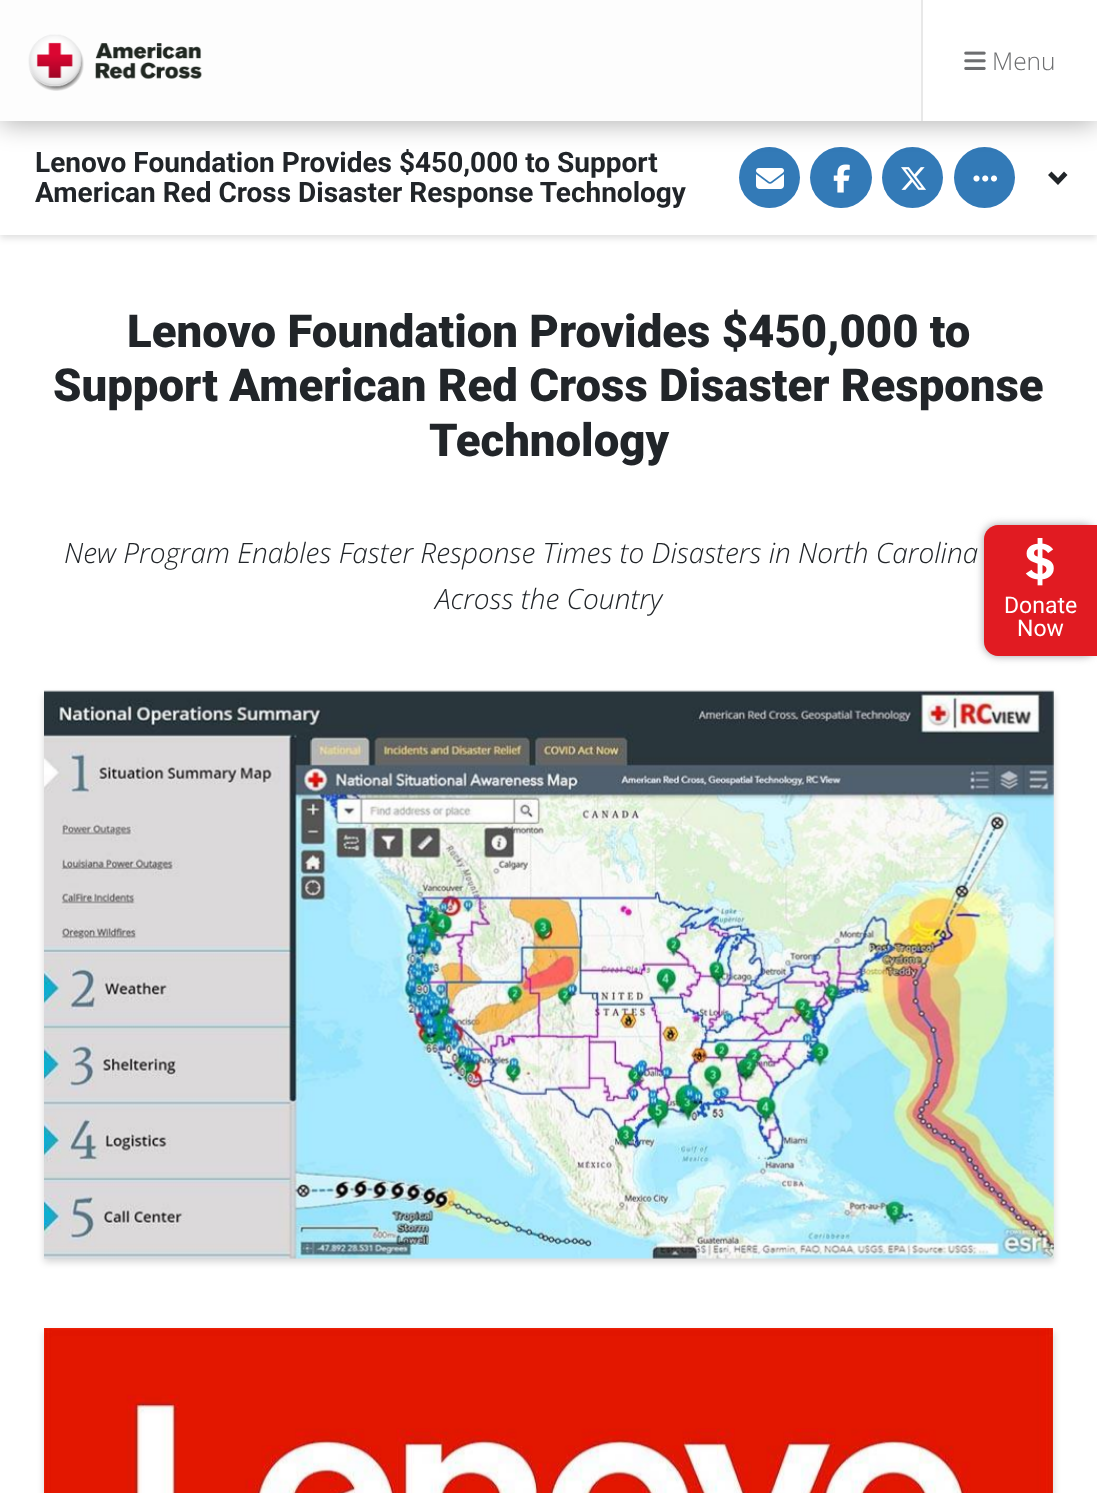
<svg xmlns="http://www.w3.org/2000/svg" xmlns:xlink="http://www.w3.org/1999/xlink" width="1097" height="1493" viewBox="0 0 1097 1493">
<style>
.cls-1{font:300 24.5px Open Sans;fill:#6d6e70}
.cls-2{font:bold 28px Roboto;fill:#212529}
.cls-3{font:900 45.5px Roboto;fill:#212529}
.cls-4{font:italic 300 28px Open Sans;fill:#212529}
.cls-5{font:23px Roboto;fill:#ffffff}
</style>
<rect width="100%" height="100%" fill="#ffffff"/>
<rect fill="#000000" fill-opacity="0.13" filter="blur(3.5px)" x="0" y="124" width="1097" height="114"/>
<rect fill="#ffffff" x="0" y="121" width="1097" height="114"/>
<circle fill="#337ab7" cx="769.5" cy="177.5" r="30.5"/>
<rect fill="#337ab7" x="810" y="147" width="62" height="61" rx="30.5"/>
<circle fill="#337ab7" cx="912.5" cy="177.5" r="30.5"/>
<circle fill="#337ab7" cx="984.5" cy="177.5" r="30.5"/>
<rect fill="#000000" fill-opacity="0.3" filter="blur(13px)" x="0" y="4" width="1097" height="120"/>
<rect fill="#fdfdfd" x="0" y="0" width="921" height="121"/>
<image xlink:href="image0.png" x="28" y="34" width="174" height="57"/>
<rect fill="#ffffff" x="923" y="0" width="174" height="121"/>
<rect fill="#e8e8e8" x="921" y="0" width="2" height="121"/>
<image xlink:href="image1.png" x="964" y="51" width="22" height="19"/>
<image xlink:href="image2.png" x="756" y="168" width="28" height="21"/>
<image xlink:href="image3.png" x="833" y="164" width="17" height="29"/>
<image xlink:href="image4.png" x="901" y="167" width="25" height="23"/>
<image xlink:href="image5.png" x="973" y="175" width="25" height="7"/>
<path fill="#212529" d="M1067.5 175L1058 185L1048 175L1051.5 171.5L1058 178L1064 171.5Z"/>
<rect fill="#000000" fill-opacity="0.16" filter="blur(3.5px)" x="44" y="695" width="1010" height="567"/>
<image xlink:href="image6.png" x="44" y="690" width="1010" height="569"/>
<rect fill="#000000" fill-opacity="0.16" filter="blur(3.5px)" x="44" y="1332" width="1010" height="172"/>
<image xlink:href="image7.png" x="44" y="1328" width="1009" height="165"/>
<rect fill="#9f9fa3" filter="blur(4.5px)" x="984" y="525" width="113" height="131" rx="14"/>
<path fill="#e11b22" d="M998 525H1097V656H998C990.5 656 984 649.5 984 642V539C984 531.5 990.5 525 998 525Z"/>
<image xlink:href="image8.png" x="1025" y="538" width="29" height="48"/>
<text class="cls-1" x="992" y="70">Menu</text>
<text class="cls-2"><tspan x="35" y="172">Lenovo Foundation Provides $450,000 to Support</tspan><tspan x="35" y="202">American Red Cross Disaster Response Technology</tspan></text>
<text class="cls-3" x="127" y="347">Lenovo Foundation Provides $450,000 to</text>
<text class="cls-3" x="53" y="401">Support American Red Cross Disaster Response</text>
<text class="cls-3" x="429" y="456">Technology</text>
<text class="cls-4" x="64" y="563">New Program Enables Faster Response Times to Disasters in North Carolina</text>
<text class="cls-4" x="435" y="609">Across the Country</text>
<text class="cls-5" x="1004" y="613">Donate</text>
<text class="cls-5" x="1017" y="636">Now</text>
</svg>
